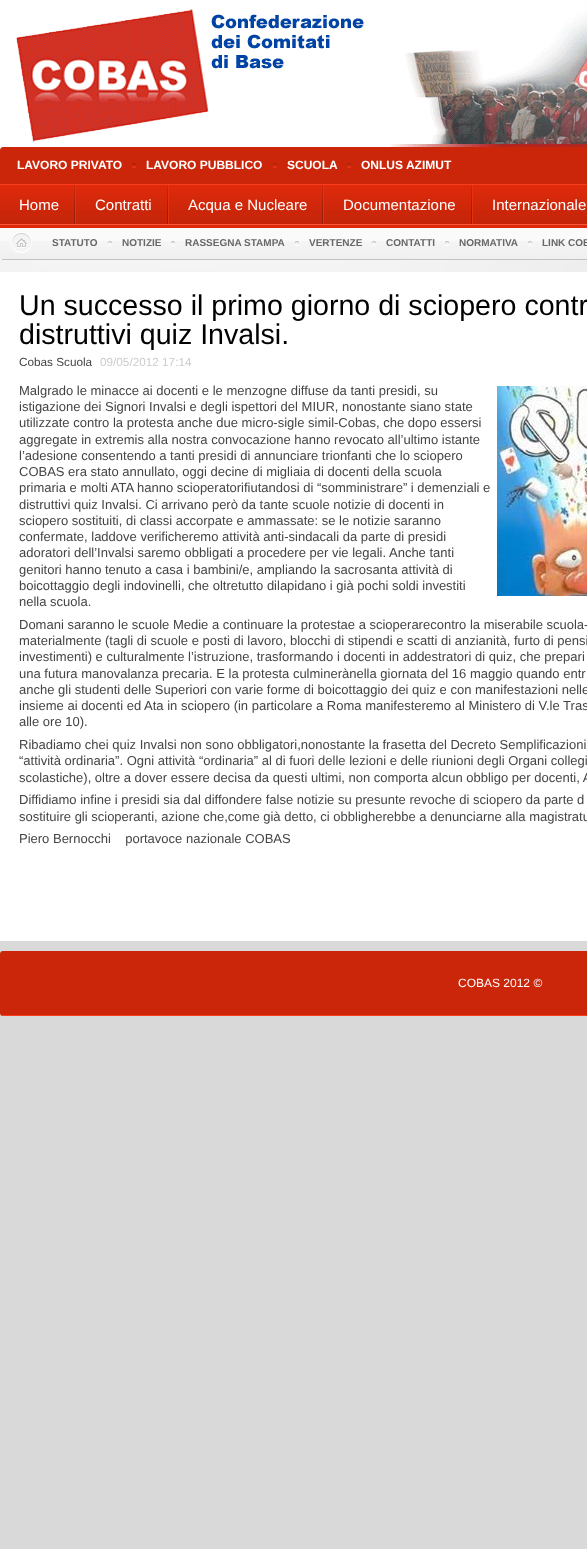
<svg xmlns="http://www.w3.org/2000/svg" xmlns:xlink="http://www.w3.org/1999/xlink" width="587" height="1549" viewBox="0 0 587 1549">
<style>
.cls-1{font:bold 12px Liberation Sans;fill:#ffffff}
.cls-2{font:15px Liberation Sans;fill:#ffffff}
.cls-3{font:bold 10px Liberation Sans;fill:#686868}
.cls-4{font:28.6px Liberation Sans;fill:#000000}
.cls-5{font:11.75px Liberation Sans;fill:#444444}
.cls-6{font:11.75px Liberation Sans;fill:#cccccc}
.cls-7{font:13px Liberation Sans;fill:#444444}
.cls-8{font:12px Liberation Sans;fill:#ffffff}
</style>
<rect width="100%" height="100%" fill="#d9d9d9"/>
<image xlink:href="image0.png" x="0" y="147" width="587" height="125"/>
<image xlink:href="image1.png" x="0" y="0" width="587" height="147"/>
<path fill="#cb260a" d="M3 147H587C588.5 147 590 148.5 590 150V185H0V150C0 148.5 1.5 147 3 147Z"/>
<rect fill="#f93d1c" x="0" y="184" width="587" height="1"/>
<image xlink:href="image2.png" x="132" y="163" width="4" height="5"/>
<image xlink:href="image2.png" x="273" y="163" width="4" height="5"/>
<image xlink:href="image2.png" x="347" y="163" width="4" height="5"/>
<image xlink:href="image3.png" x="0" y="185" width="587" height="39"/>
<rect fill="#dc2a0b" x="0" y="225" width="587" height="3"/>
<rect fill="#ff583b" x="0" y="224" width="587" height="1"/>
<image xlink:href="image4.png" x="74" y="185" width="2" height="39"/>
<image xlink:href="image4.png" x="167" y="185" width="2" height="39"/>
<image xlink:href="image4.png" x="322" y="185" width="2" height="39"/>
<image xlink:href="image4.png" x="471" y="185" width="2" height="39"/>
<path fill="#fafafa" d="M0 228H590V257C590 258.5 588.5 260 587 260H3C1.5 260 0 258.5 0 257Z"/>
<image xlink:href="image5.png" x="0" y="241" width="587" height="18"/>
<rect fill="#c3c3c3" x="2" y="259" width="585" height="1"/>
<image xlink:href="image6.png" x="11" y="232" width="21" height="21"/>
<image xlink:href="image7.png" x="108" y="241" width="4" height="5"/>
<image xlink:href="image7.png" x="171" y="241" width="4" height="5"/>
<image xlink:href="image7.png" x="295" y="241" width="4" height="5"/>
<image xlink:href="image7.png" x="372" y="241" width="4" height="5"/>
<image xlink:href="image7.png" x="445" y="241" width="4" height="5"/>
<image xlink:href="image7.png" x="528" y="241" width="4" height="5"/>
<rect fill="#ffffff" x="0" y="272" width="587" height="669"/>
<image xlink:href="image8.png" x="497" y="386" width="90" height="210"/>
<rect fill="#cb260a" x="0" y="951" width="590" height="65" rx="3"/>
<rect fill="#f93d1c" x="2" y="1015" width="585" height="1"/>
<text class="cls-1" x="17" y="169">LAVORO PRIVATO</text>
<text class="cls-1" x="146" y="169">LAVORO PUBBLICO</text>
<text class="cls-1" x="287" y="169">SCUOLA</text>
<text class="cls-1" x="361" y="169">ONLUS AZIMUT</text>
<text class="cls-2" x="19" y="210">Home</text>
<text class="cls-2" x="95" y="210">Contratti</text>
<text class="cls-2" x="188" y="210">Acqua e Nucleare</text>
<text class="cls-2" x="343" y="210">Documentazione</text>
<text class="cls-2" x="492" y="210">Internazionale</text>
<text class="cls-3" x="52" y="246">STATUTO</text>
<text class="cls-3" x="122" y="246">NOTIZIE</text>
<text class="cls-3" x="185" y="246">RASSEGNA STAMPA</text>
<text class="cls-3" x="309" y="246">VERTENZE</text>
<text class="cls-3" x="386" y="246">CONTATTI</text>
<text class="cls-3" x="459" y="246">NORMATIVA</text>
<text class="cls-3" x="542" y="246">LINK COB</text>
<text class="cls-4"><tspan x="19" y="315">Un successo il primo giorno di sciopero contr</tspan><tspan x="19" y="344">distruttivi quiz Invalsi.</tspan></text>
<text class="cls-5" x="19" y="366">Cobas Scuola</text>
<text class="cls-6" x="100" y="366">09/05/2012 17:14</text>
<text class="cls-7" xml:space="preserve"><tspan x="19" y="395">Malgrado le minacce ai docenti e le menzogne diffuse da tanti presidi, su</tspan><tspan x="19" y="411">istigazione dei Signori Invalsi e degli ispettori del MIUR, nonostante siano state</tspan><tspan x="19" y="427">utilizzate contro la protesta anche due micro-sigle simil-Cobas, che dopo essersi</tspan><tspan x="19" y="444">aggregate in extremis alla nostra convocazione hanno revocato all’ultimo istante</tspan><tspan x="19" y="460">l’adesione consentendo a tanti presidi di annunciare trionfanti che lo sciopero</tspan><tspan x="19" y="476">COBAS era stato annullato, oggi decine di migliaia di docenti della scuola</tspan><tspan x="19" y="492">primaria e molti ATA hanno scioperatorifiutandosi di “somministrare” i demenziali e</tspan><tspan x="19" y="509">distruttivi quiz Invalsi. Ci arrivano però da tante scuole notizie di docenti in</tspan><tspan x="19" y="525">sciopero sostituiti, di classi accorpate e ammassate: se le notizie saranno</tspan><tspan x="19" y="541">confermate, laddove verificheremo attività anti-sindacali da parte di presidi</tspan><tspan x="19" y="557">adoratori dell’Invalsi saremo obbligati a procedere per vie legali. Anche tanti</tspan><tspan x="19" y="574">genitori hanno tenuto a casa i bambini/e, ampliando la sacrosanta attività di</tspan><tspan x="19" y="590">boicottaggio degli indovinelli, che oltretutto dilapidano i già pochi soldi investiti</tspan><tspan x="19" y="606">nella scuola.</tspan><tspan x="19" y="629">Domani saranno le scuole Medie a continuare la protestae a scioperarecontro la miserabile scuola-</tspan><tspan x="19" y="645">materialmente (tagli di scuole e posti di lavoro, blocchi di stipendi e scatti di anzianità, furto di pensi</tspan><tspan x="19" y="661">investimenti) e culturalmente l’istruzione, trasformando i docenti in addestratori di quiz, che prepari</tspan><tspan x="19" y="678">una futura manovalanza precaria. E la protesta culminerànella giornata del 16 maggio quando entr</tspan><tspan x="19" y="694">anche gli studenti delle Superiori con varie forme di boicottaggio dei quiz e con manifestazioni nelle</tspan><tspan x="19" y="710">insieme ai docenti ed Ata in sciopero (in particolare a Roma manifesteremo al Ministero di V.le Tras</tspan><tspan x="19" y="726">alle ore 10).</tspan><tspan x="19" y="749">Ribadiamo chei quiz Invalsi non sono obbligatori,nonostante la frasetta del Decreto Semplificazioni</tspan><tspan x="19" y="765">“attività ordinaria”. Ogni attività “ordinaria” al di fuori delle lezioni e delle riunioni degli Organi collegi</tspan><tspan x="19" y="782">scolastiche), oltre a dover essere decisa da questi ultimi, non comporta alcun obbligo per docenti, A</tspan><tspan x="19" y="804">Diffidiamo infine i presidi sia dal diffondere false notizie su presunte revoche di sciopero da parte d</tspan><tspan x="19" y="821">sostituire gli scioperanti, azione che,come già detto, ci obbligherebbe a denunciarne alla magistratu</tspan><tspan x="19" y="843">Piero Bernocchi    portavoce nazionale COBAS</tspan></text>
<text class="cls-8" x="458" y="987">COBAS 2012 ©</text>
</svg>
